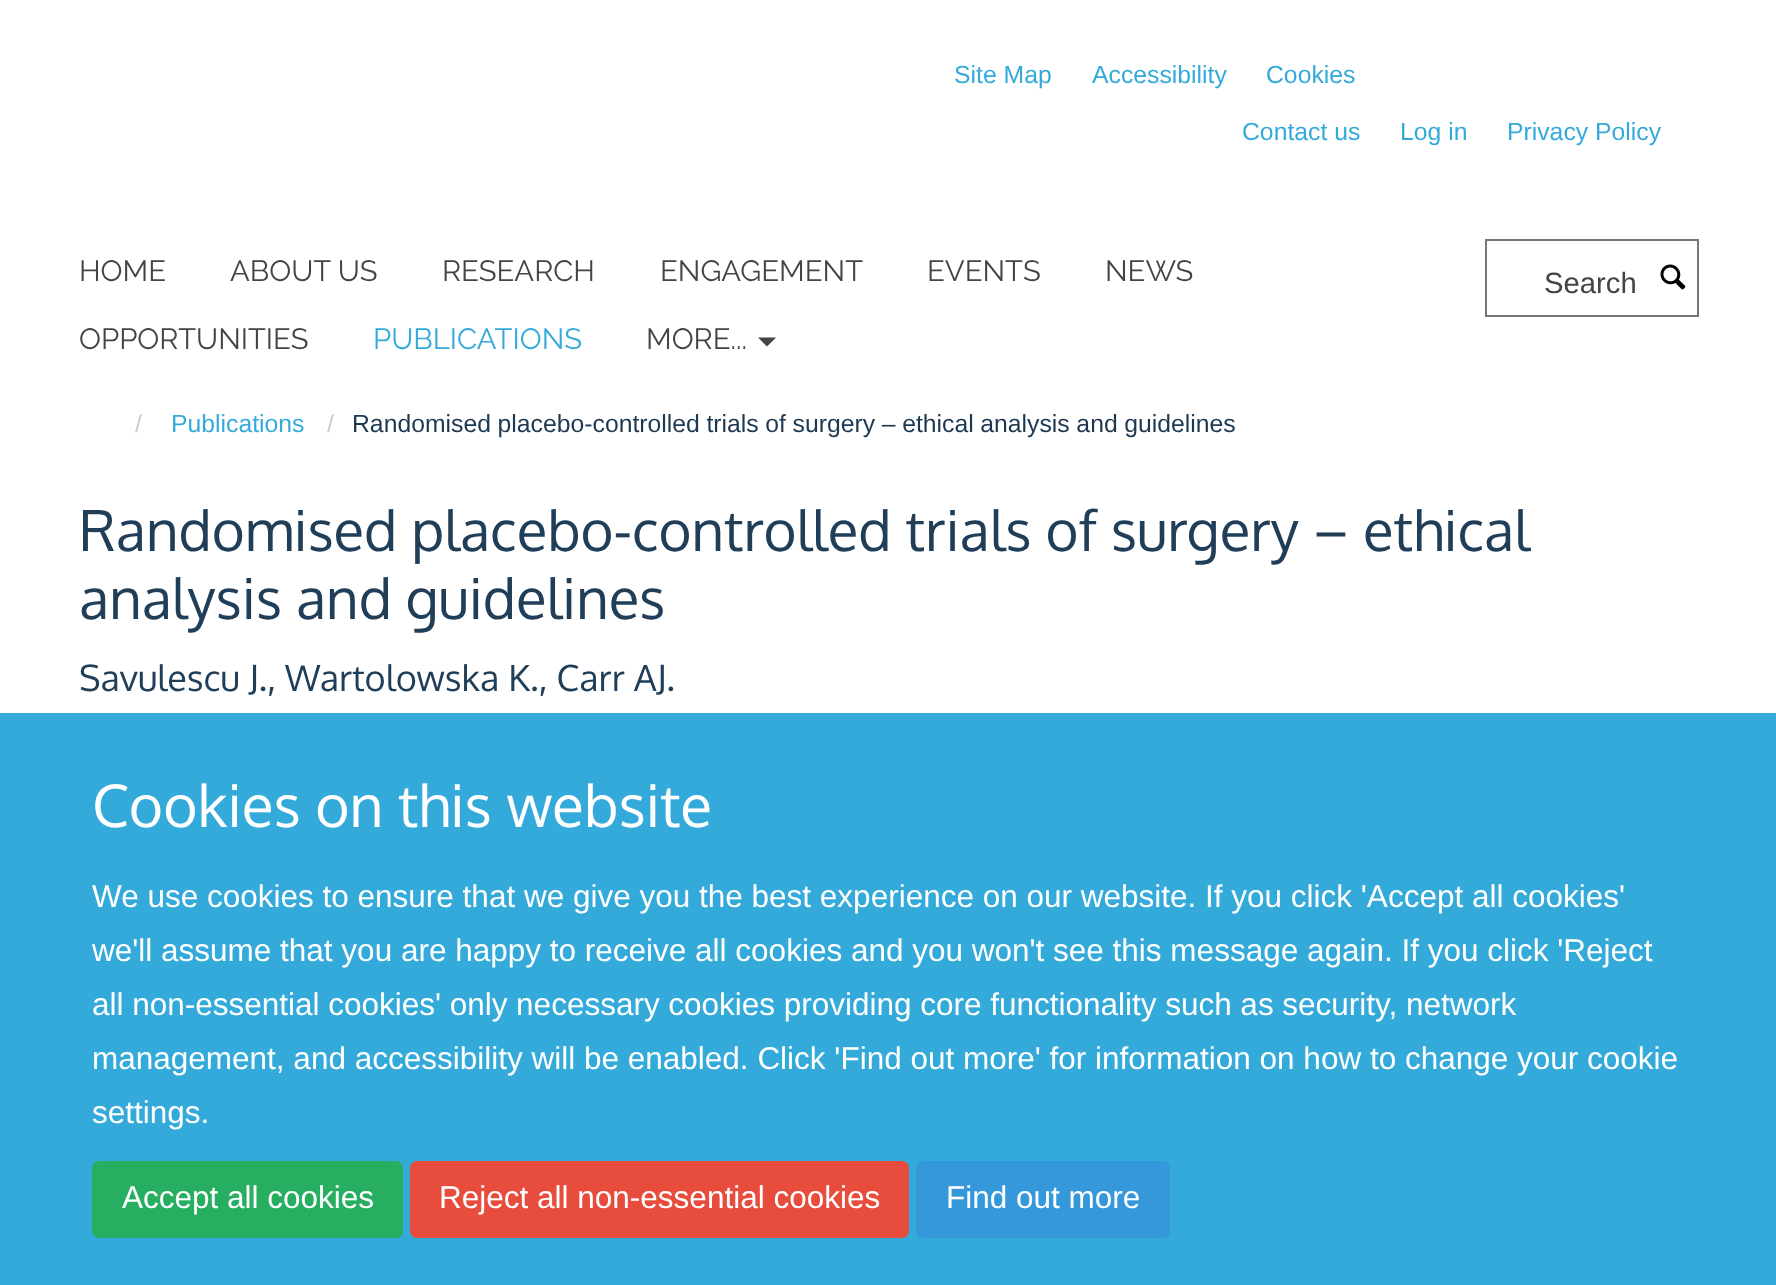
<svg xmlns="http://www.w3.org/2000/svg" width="1776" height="1285">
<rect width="100%" height="100%" fill="#fff"/>
<text x="954" y="83" style="font-family:Liberation Sans;font-size:24.75px;fill:#34aadb">Site Map</text>
<text x="1092" y="83" style="font-family:Liberation Sans;font-size:24.75px;fill:#34aadb">Accessibility</text>
<text x="1266" y="83" style="font-family:Liberation Sans;font-size:24.75px;fill:#34aadb">Cookies</text>
<text x="1242" y="140" style="font-family:Liberation Sans;font-size:24.75px;fill:#34aadb">Contact us</text>
<text x="1400" y="140" style="font-family:Liberation Sans;font-size:24.75px;fill:#34aadb">Log in</text>
<text x="1507" y="140" style="font-family:Liberation Sans;font-size:24.75px;fill:#34aadb">Privacy Policy</text>
<text x="79" y="281" style="font-family:Raleway;font-size:29.25px;font-weight:100;fill:#444">HOME</text>
<text x="230" y="281" style="font-family:Raleway;font-size:29.25px;font-weight:100;fill:#444">ABOUT US</text>
<text x="442" y="281" style="font-family:Raleway;font-size:29.25px;font-weight:100;fill:#444">RESEARCH</text>
<text x="660" y="281" style="font-family:Raleway;font-size:29.25px;font-weight:100;fill:#444">ENGAGEMENT</text>
<text x="927" y="281" style="font-family:Raleway;font-size:29.25px;font-weight:100;fill:#444">EVENTS</text>
<text x="1105" y="281" style="font-family:Raleway;font-size:29.25px;font-weight:100;fill:#444">NEWS</text>
<text x="79" y="349" style="font-family:Raleway;font-size:29.25px;font-weight:100;fill:#444">OPPORTUNITIES</text>
<text x="373" y="349" style="font-family:Raleway;font-size:29.25px;font-weight:100;fill:#34aadb">PUBLICATIONS</text>
<text x="646" y="349" style="font-family:Raleway;font-size:29.25px;font-weight:100;fill:#444">MORE...</text>
<path d="M758 337.5h18l-9 9z" fill="#444"/>
<rect x="1486" y="240" width="212" height="76" fill="none" stroke="#777" stroke-width="2"/>
<text x="1544" y="293" style="font-family:Liberation Sans;font-size:29.25px;fill:#444">Search</text>
<image x="1660" y="264" width="26" height="26" href="media/1.png"/>
<text x="135" y="432" style="font-family:Liberation Sans;font-size:24.75px;fill:#ccc">/</text>
<text x="171" y="432" style="font-family:Liberation Sans;font-size:24.75px;fill:#34aadb">Publications</text>
<text x="327" y="432" style="font-family:Liberation Sans;font-size:24.75px;fill:#ccc">/</text>
<text x="352" y="432" word-spacing="-0.25" style="font-family:Liberation Sans;font-size:24.75px;fill:#1d3850">Randomised placebo-controlled trials of surgery – ethical analysis and guidelines</text>
<text x="79" y="551" style="font-family:Oxygen;font-size:56.25px;fill:#203e58">Randomised placebo-controlled trials of surgery – ethical</text>
<text x="79" y="619" style="font-family:Oxygen;font-size:56.25px;fill:#203e58">analysis and guidelines</text>
<text x="79" y="691" style="font-family:Oxygen;font-size:36px;fill:#203e58">Savulescu J., Wartolowska K., Carr AJ.</text>
<rect y="713" width="1776" height="572" fill="#34aadb"/>
<text x="92" y="827" style="font-family:Oxygen;font-size:58.5px;fill:#fff">Cookies on this website</text>
<text x="92" y="907" style="font-family:Liberation Sans;font-size:31.5px;fill:#fff">We use cookies to ensure that we give you the best experience on our website. If you click 'Accept all cookies'</text>
<text x="92" y="961" style="font-family:Liberation Sans;font-size:31.5px;fill:#fff">we'll assume that you are happy to receive all cookies and you won't see this message again. If you click 'Reject</text>
<text x="92" y="1015" word-spacing="-0.1" style="font-family:Liberation Sans;font-size:31.5px;fill:#fff">all non-essential cookies' only necessary cookies providing core functionality such as security, network</text>
<text x="92" y="1069" style="font-family:Liberation Sans;font-size:31.5px;fill:#fff">management, and accessibility will be enabled. Click 'Find out more' for information on how to change your cookie</text>
<text x="92" y="1123" style="font-family:Liberation Sans;font-size:31.5px;fill:#fff">settings.</text>
<rect x="93" y="1162" width="309" height="75" rx="6" fill="#27ae60" stroke="#27ae60" stroke-width="2"/>
<text x="122" y="1208" style="font-family:Liberation Sans;font-size:31.5px;fill:#fff">Accept all cookies</text>
<rect x="411" y="1162" width="497" height="75" rx="6" fill="#e74c3c" stroke="#e74c3c" stroke-width="2"/>
<text x="439" y="1208" style="font-family:Liberation Sans;font-size:31.5px;fill:#fff">Reject all non-essential cookies</text>
<rect x="917" y="1162" width="252" height="75" rx="6" fill="#3498db" stroke="#3498db" stroke-width="2"/>
<text x="946" y="1208" style="font-family:Liberation Sans;font-size:31.5px;fill:#fff">Find out more</text>
</svg>
